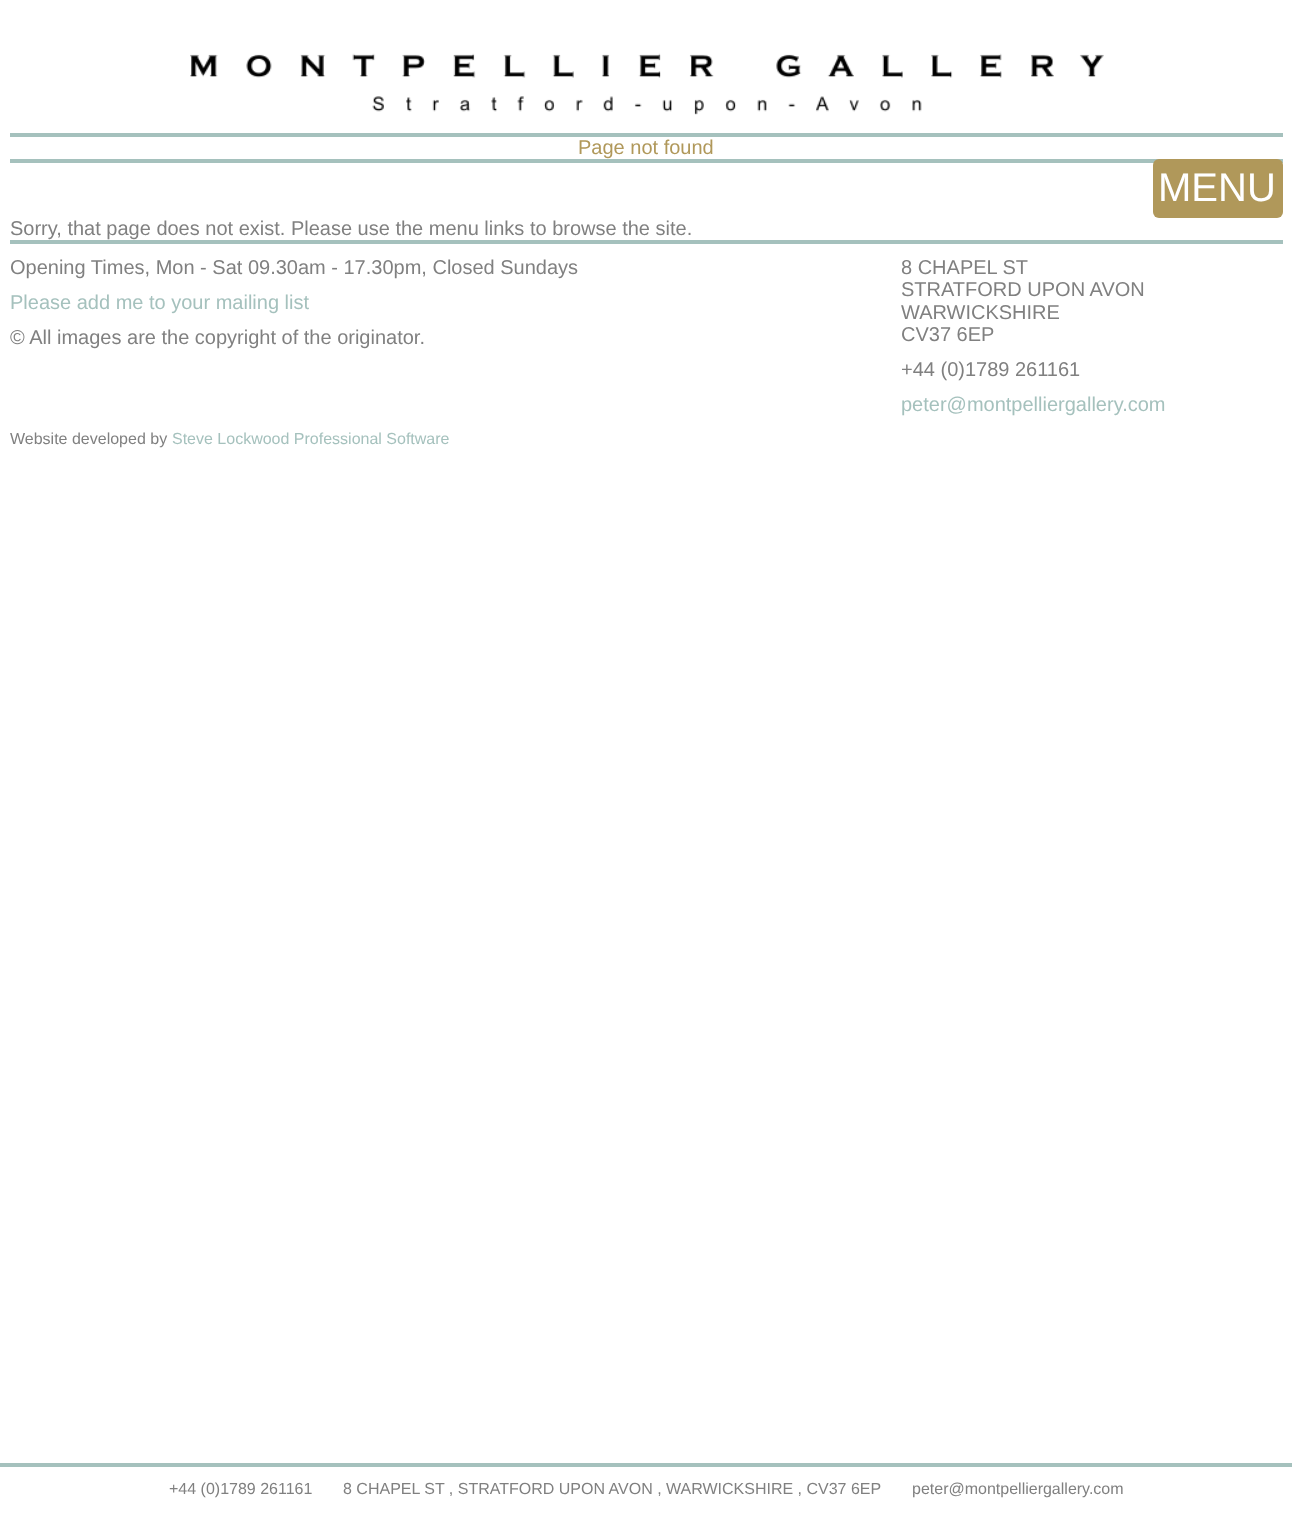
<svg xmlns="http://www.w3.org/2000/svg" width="1292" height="1517">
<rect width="100%" height="100%" fill="#fff"/>
<image x="190" y="53" width="914" height="62" href="media/1.png"/>
<rect x="10" y="133" width="1273" height="4" fill="#a5c1bd"/>
<rect x="10" y="159" width="1273" height="4" fill="#a5c1bd"/>
<text x="578" y="154" style="font-family:Liberation Sans;font-size:20px;fill:#b0985a">Page not found</text>
<rect x="1153" y="159" width="130" height="59" rx="6" fill="#b0985a"/>
<text x="1158" y="201" style="font-family:Liberation Sans;font-size:40px;fill:#fff">MENU</text>
<text x="10" y="235" style="font-family:Liberation Sans;font-size:20px;fill:#808080">Sorry, that page does not exist. Please use the menu links to browse the site.</text>
<rect x="10" y="240" width="1273" height="4" fill="#a5c1bd"/>
<text x="10" y="274" style="font-family:Liberation Sans;font-size:20px;fill:#808080">Opening Times, Mon - Sat 09.30am - 17.30pm, Closed Sundays</text>
<text x="901" y="274" style="font-family:Liberation Sans;font-size:20px;fill:#808080">8 CHAPEL ST</text>
<text x="901" y="296" style="font-family:Liberation Sans;font-size:20px;fill:#808080">STRATFORD UPON AVON</text>
<text x="901" y="319" style="font-family:Liberation Sans;font-size:20px;fill:#808080">WARWICKSHIRE</text>
<text x="901" y="341" style="font-family:Liberation Sans;font-size:20px;fill:#808080">CV37 6EP</text>
<text x="10" y="309" style="font-family:Liberation Sans;font-size:20px;fill:#a5c1bd">Please add me to your mailing list</text>
<text x="10" y="344" style="font-family:Liberation Sans;font-size:20px;fill:#808080">© All images are the copyright of the originator.</text>
<text x="901" y="376" style="font-family:Liberation Sans;font-size:20px;fill:#808080">+44 (0)1789 261161</text>
<text x="901" y="411" style="font-family:Liberation Sans;font-size:20px;fill:#a5c1bd">peter@montpelliergallery.com</text>
<text x="10" y="444" style="font-family:Liberation Sans;font-size:16px;fill:#808080">Website developed by</text>
<text x="172" y="444" style="font-family:Liberation Sans;font-size:16px;fill:#a5c1bd">Steve Lockwood Professional Software</text>
<rect y="1463" width="1292" height="4" fill="#a5c1bd"/>
<text x="169" y="1494" style="font-family:Liberation Sans;font-size:16px;fill:#808080">+44 (0)1789 261161</text>
<text x="343" y="1494" style="font-family:Liberation Sans;font-size:16px;fill:#808080">8 CHAPEL ST , STRATFORD UPON AVON , WARWICKSHIRE , CV37 6EP</text>
<text x="912" y="1494" style="font-family:Liberation Sans;font-size:16px;fill:#808080">peter@montpelliergallery.com</text>
</svg>
